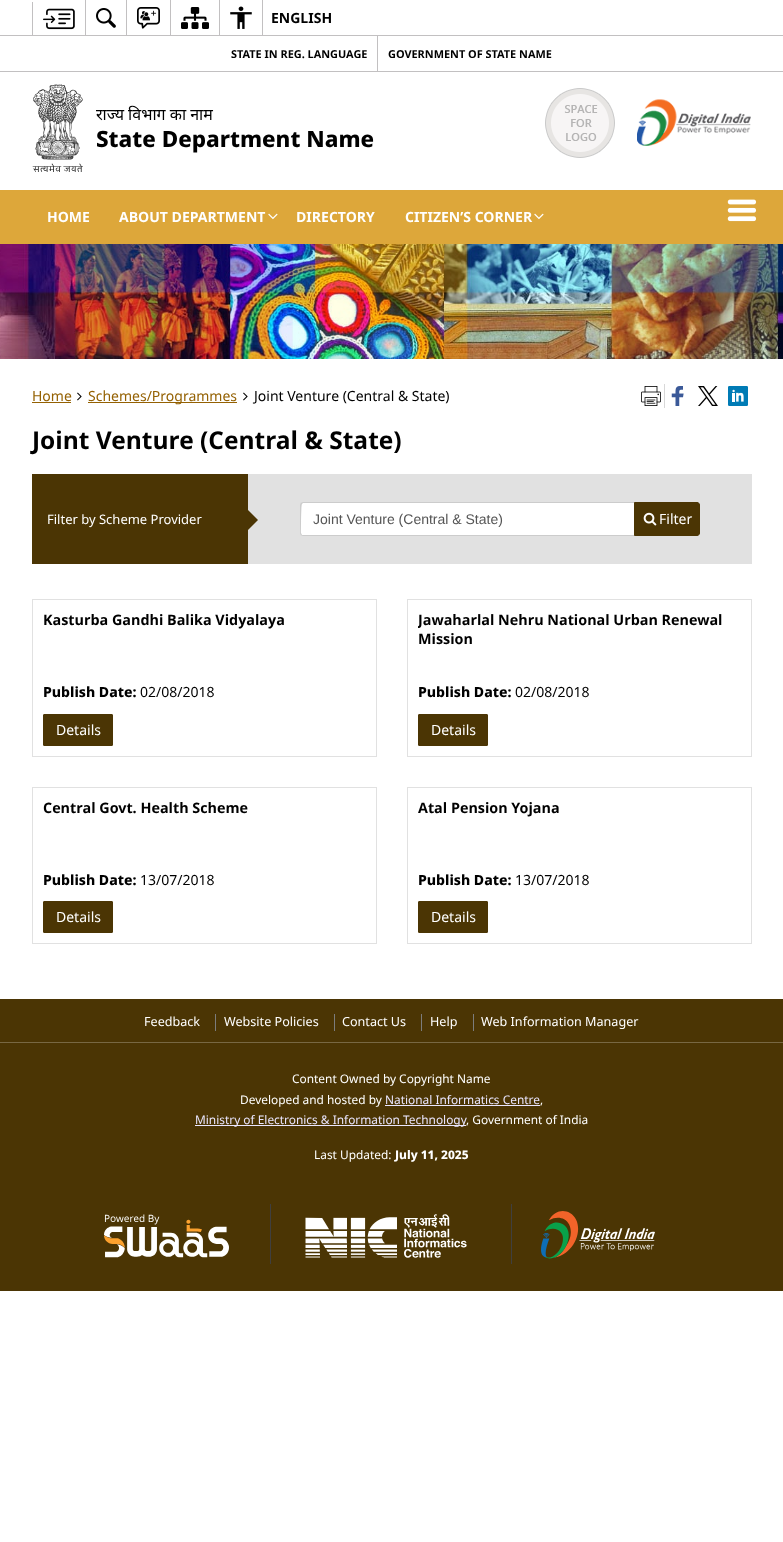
<svg xmlns="http://www.w3.org/2000/svg" width="783" height="1542">
<defs>
<clipPath id="clip1"><rect x="418" y="610" width="323" height="70"/></clipPath>
</defs>
<rect width="100%" height="100%" fill="#fff"/>
<rect y="71" width="783" height="1" fill="#c2c0c1"/>
<rect x="32" y="2" width="1" height="33" fill="#c2c0c1"/>
<image x="43" y="8" width="32" height="22" href="media/1.png"/>
<rect x="85" width="1" height="35" fill="#c2c0c1"/>
<image x="96" y="8" width="20" height="20" href="media/2.png"/>
<rect x="126" width="1" height="35" fill="#c2c0c1"/>
<image x="137" y="7" width="23" height="22" href="media/3.png"/>
<rect x="170" width="1" height="35" fill="#c2c0c1"/>
<image x="181" y="7" width="28" height="22" href="media/4.png"/>
<rect x="219" width="1" height="35" fill="#c2c0c1"/>
<image x="230" y="6" width="22" height="23" href="media/5.png"/>
<rect x="262" width="1" height="35" fill="#c2c0c1"/>
<text x="271" y="23" style="font-family:Noto Sans;font-size:14px;font-weight:bold;fill:#000">ENGLISH</text>
<rect x="377" y="36" width="1" height="35" fill="#c2c0c1"/>
<text x="231" y="58" style="font-family:Noto Sans;font-size:10.9px;font-weight:bold;fill:#000">STATE IN REG. LANGUAGE</text>
<text x="388" y="58" style="font-family:Noto Sans;font-size:10.9px;font-weight:bold;fill:#000">GOVERNMENT OF STATE NAME</text>
<rect y="35" width="783" height="1" fill="#c2c0c1"/>
<image x="32" y="84" width="51" height="88" href="media/6.png"/>
<text x="96" y="120" style="font-family:Noto Sans;font-size:16px;fill:#000">राज्य विभाग का नाम</text>
<text x="96" y="147" style="font-family:Noto Sans;font-size:22.4px;font-weight:800;fill:#000">State Department Name</text>
<image x="545" y="88" width="70" height="70" href="media/7.png"/>
<image x="637" y="99" width="114" height="47" href="media/8.png"/>
<rect y="190" width="783" height="54" fill="#dda73a"/>
<text x="47" y="222" style="font-family:Noto Sans;font-size:14px;font-weight:bold;fill:#fff">HOME</text>
<text x="119" y="222" style="font-family:Noto Sans;font-size:14px;font-weight:bold;fill:#fff">ABOUT DEPARTMENT</text>
<image x="268" y="213" width="10" height="7" href="media/9.png"/>
<text x="296" y="222" style="font-family:Noto Sans;font-size:14px;font-weight:bold;fill:#fff">DIRECTORY</text>
<text x="405" y="222" style="font-family:Noto Sans;font-size:14px;font-weight:bold;fill:#fff">CITIZEN’S CORNER</text>
<image x="534" y="213" width="10" height="7" href="media/9.png"/>
<image x="727" y="199" width="30" height="23" href="media/10.png"/>
<image x="0" y="244" width="783" height="115" href="media/11.png"/>
<text x="32" y="401" style="font-family:Noto Sans;font-size:14px;fill:#946103">Home</text>
<rect x="32" y="402" width="39" height="1" fill="#946103"/>
<image x="77" y="392" width="5" height="9" href="media/12.png"/>
<rect x="88" y="402" width="149" height="1" fill="#946103"/>
<text x="88" y="401" style="font-family:Noto Sans;font-size:14px;fill:#946103">Schemes/Programmes</text>
<image x="243" y="392" width="5" height="9" href="media/12.png"/>
<text x="254" y="401" style="font-family:Noto Sans;font-size:14px;fill:#000">Joint Venture (Central &amp; State)</text>
<rect x="664" y="384" width="1" height="24" fill="#d8d8d8"/>
<image x="641" y="386" width="20" height="20" href="media/13.png"/>
<image x="671" y="386" width="13" height="20" href="media/14.png"/>
<image x="698" y="386" width="20" height="20" href="media/15.png"/>
<image x="728" y="386" width="20" height="20" href="media/16.png"/>
<text x="32" y="449" style="font-family:Noto Sans;font-size:24.5px;font-weight:bold;fill:#000">Joint Venture (Central &amp; State)</text>
<rect x="248" y="474" width="504" height="90" fill="#e1e1e1"/>
<rect x="32" y="474" width="216" height="90" fill="#4b3504"/>
<text x="47" y="524" style="font-family:Noto Sans;font-size:13px;fill:#fff">Filter by Scheme Provider</text>
<path d="M248 530v-20l10 10z" fill="#4b3504"/>
<path d="M303 502h331v34h-331c-1.5 0-3-1.5-3-3v-28c0-1.5 1.5-3 3-3z" fill="#fff"/>
<path d="M303 502h331v34h-331c-2 0-3-1-3-3v-28c0-2 1-3 3-3zm0 1h331v32h-332l-1-2c0-2 0-29 1-29z" fill="#ccc" fill-rule="evenodd"/>
<text x="313" y="524" style="font-family:Liberation Sans;font-size:14px;fill:#555">Joint Venture (Central &amp; State)</text>
<path d="M634.5 502.5h62.5c1.5 0 2.5 1 2.5 2.5v28c0 1.5-1 2.5-2.5 2.5h-62.5z" fill="#4b3504" stroke="#4b3504"/>
<image x="643" y="512" width="14" height="14" href="media/17.png"/>
<text x="659" y="524" style="font-family:Noto Sans;font-size:14px;fill:#fff">Filter</text>
<rect x="32.5" y="599.5" width="344" height="157" fill="none" stroke="#e1e1e1"/>
<text x="43" y="625" style="font-family:Noto Sans;font-size:14.35px;font-weight:bold;fill:#000">Kasturba Gandhi Balika Vidyalaya</text>
<text x="43" y="697" style="font-family:Noto Sans;font-size:14px;font-weight:800;fill:#000">Publish Date:</text>
<text x="140" y="697" style="font-family:Noto Sans;font-size:14px;fill:#000">02/08/2018</text>
<rect x="43.5" y="714.5" width="69" height="31" rx="0.5" fill="#4b3504" stroke="#4b3504"/>
<text x="56" y="735" style="font-family:Noto Sans;font-size:14px;fill:#fff">Details</text>
<rect x="407.5" y="599.5" width="344" height="157" fill="none" stroke="#e1e1e1"/>
<g clip-path="url(#clip1)">
<text x="418" y="625" style="font-family:Noto Sans;font-size:14.35px;font-weight:bold;fill:#000">Jawaharlal Nehru National Urban Renewal</text>
</g>
<text x="418" y="644" style="font-family:Noto Sans;font-size:14.35px;font-weight:bold;fill:#000">Mission</text>
<text x="418" y="697" style="font-family:Noto Sans;font-size:14px;font-weight:800;fill:#000">Publish Date:</text>
<text x="515" y="697" style="font-family:Noto Sans;font-size:14px;fill:#000">02/08/2018</text>
<rect x="418.5" y="714.5" width="69" height="31" rx="0.5" fill="#4b3504" stroke="#4b3504"/>
<text x="431" y="735" style="font-family:Noto Sans;font-size:14px;fill:#fff">Details</text>
<rect x="32.5" y="787.5" width="344" height="156" fill="none" stroke="#e1e1e1"/>
<text x="43" y="813" style="font-family:Noto Sans;font-size:14.35px;font-weight:bold;fill:#000">Central Govt. Health Scheme</text>
<text x="43" y="885" style="font-family:Noto Sans;font-size:14px;font-weight:800;fill:#000">Publish Date:</text>
<text x="140" y="885" style="font-family:Noto Sans;font-size:14px;fill:#000">13/07/2018</text>
<rect x="43.5" y="901.5" width="69" height="31" rx="0.5" fill="#4b3504" stroke="#4b3504"/>
<text x="56" y="922" style="font-family:Noto Sans;font-size:14px;fill:#fff">Details</text>
<rect x="407.5" y="787.5" width="344" height="156" fill="none" stroke="#e1e1e1"/>
<text x="418" y="813" style="font-family:Noto Sans;font-size:14.35px;font-weight:bold;fill:#000">Atal Pension Yojana</text>
<text x="418" y="885" style="font-family:Noto Sans;font-size:14px;font-weight:800;fill:#000">Publish Date:</text>
<text x="515" y="885" style="font-family:Noto Sans;font-size:14px;fill:#000">13/07/2018</text>
<rect x="418.5" y="901.5" width="69" height="31" rx="0.5" fill="#4b3504" stroke="#4b3504"/>
<text x="431" y="922" style="font-family:Noto Sans;font-size:14px;fill:#fff">Details</text>
<rect y="999" width="783" height="43" fill="#4b3504"/>
<rect y="1042" width="783" height="1" fill="#786843"/>
<text x="144" y="1026" style="font-family:Noto Sans;font-size:12.6px;fill:#fff">Feedback</text>
<rect x="215" y="1014" width="1" height="17" fill="#7c7c7c"/>
<text x="224" y="1026" style="font-family:Noto Sans;font-size:12.6px;fill:#fff">Website Policies</text>
<rect x="334" y="1014" width="1" height="17" fill="#7c7c7c"/>
<text x="342" y="1026" style="font-family:Noto Sans;font-size:12.6px;fill:#fff">Contact Us</text>
<rect x="421" y="1014" width="1" height="17" fill="#7c7c7c"/>
<text x="430" y="1026" style="font-family:Noto Sans;font-size:12.6px;fill:#fff">Help</text>
<rect x="473" y="1014" width="1" height="17" fill="#7c7c7c"/>
<text x="481" y="1026" style="font-family:Noto Sans;font-size:12.6px;fill:#fff">Web Information Manager</text>
<rect y="1043" width="783" height="248" fill="#4b3504"/>
<text x="292" y="1083" style="font-family:Noto Sans;font-size:11.9px;fill:#fff">Content Owned by Copyright Name</text>
<text x="240" y="1104" style="font-family:Noto Sans;font-size:11.9px;fill:#fff">Developed and hosted by</text>
<text x="385" y="1104" style="font-family:Noto Sans;font-size:11.9px;fill:#eae6ff">National Informatics Centre</text>
<rect x="385" y="1105" width="155" height="1" fill="#eae6ff"/>
<text x="540" y="1104" style="font-family:Noto Sans;font-size:11.9px;fill:#fff">,</text>
<rect x="195" y="1125" width="271" height="1" fill="#eae6ff"/>
<text x="195" y="1124" style="font-family:Noto Sans;font-size:11.9px;fill:#eae6ff">Ministry of Electronics &amp; Information Technology</text>
<text x="466" y="1124" style="font-family:Noto Sans;font-size:11.9px;fill:#fff">, Government of India</text>
<text x="314" y="1159" style="font-family:Noto Sans;font-size:11.9px;fill:#fff">Last Updated:</text>
<text x="395" y="1159" style="font-family:Noto Sans;font-size:11.9px;font-weight:800;fill:#fff">July 11, 2025</text>
<image x="104" y="1214" width="125" height="44" href="media/18.png"/>
<rect x="270" y="1204" width="1" height="60" fill="#3f3f3f"/>
<image x="305" y="1214" width="162" height="44" href="media/19.png"/>
<rect x="511" y="1204" width="1" height="60" fill="#3f3f3f"/>
<image x="541" y="1211" width="114" height="48" href="media/20.png"/>
</svg>
